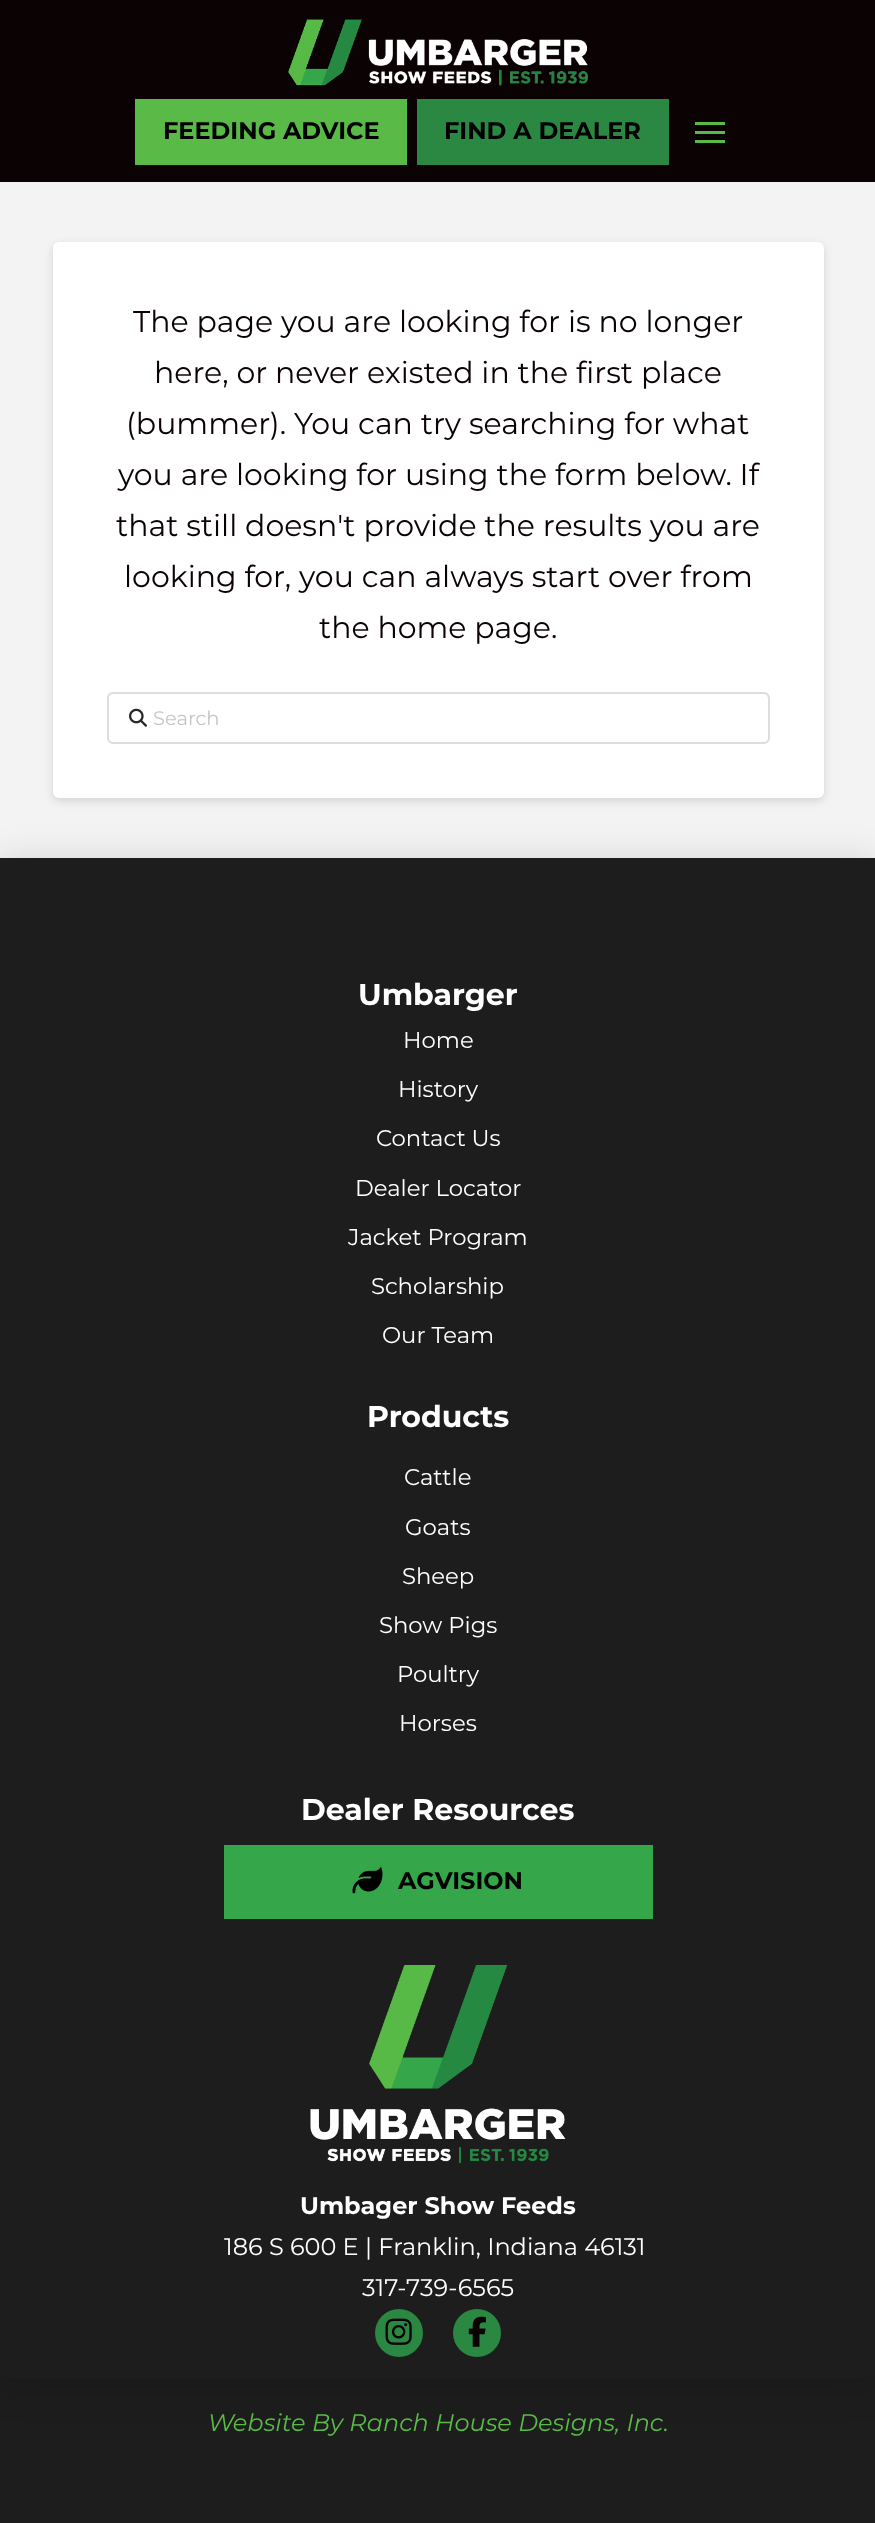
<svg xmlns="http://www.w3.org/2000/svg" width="875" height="2523">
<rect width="100%" height="100%" fill="#f3f3f3"/>
<rect width="875" height="182" fill="#0a0203"/>
<image x="288" y="19" width="300" height="67" href="media/1.png"/>
<rect x="135" y="99" width="272" height="66" fill="#5aba47"/>
<text x="163" y="139" style="font-family:Montserrat;font-size:24px;font-weight:bold;fill:#000">FEEDING ADVICE</text>
<rect x="417" y="99" width="252" height="66" fill="#2a8842"/>
<text x="444" y="139" style="font-family:Montserrat;font-size:24px;font-weight:bold;fill:#000">FIND A DEALER</text>
<rect x="695" y="122" width="30" height="3" fill="#5aba47"/>
<rect x="695" y="131" width="30" height="3" fill="#5aba47"/>
<rect x="695" y="140" width="30" height="3" fill="#5aba47"/>
<rect x="53" y="245" width="771" height="556" rx="6" fill="#00000021" filter="blur(4px)"/>
<rect x="53" y="242" width="771" height="556" rx="6" fill="#fff"/>
<text x="133" y="332" style="font-family:Montserrat;font-size:30px;fill:#0a0203">The page you are looking for is no longer</text>
<text x="154" y="383" style="font-family:Montserrat;font-size:30px;fill:#0a0203">here, or never existed in the first place</text>
<text x="126" y="434" style="font-family:Montserrat;font-size:30px;fill:#0a0203">(bummer). You can try searching for what</text>
<text x="118" y="485" style="font-family:Montserrat;font-size:30px;fill:#0a0203">you are looking for using the form below. If</text>
<text x="116" y="536" style="font-family:Montserrat;font-size:30px;fill:#0a0203">that still doesn't provide the results you are</text>
<text x="124" y="587" style="font-family:Montserrat;font-size:30px;fill:#0a0203">looking for, you can always start over from</text>
<text x="319" y="638" style="font-family:Montserrat;font-size:30px;fill:#0a0203">the home page.</text>
<path d="M112 694h652c2 0 4 3 4 5v-1c0-3-2-5-5-5h-650c-3 0-5 2-5 5v1c0-2 2-5 4-5z" fill="#ececec"/>
<rect x="108" y="693" width="661" height="50" rx="5" fill="none" stroke="#ddd" stroke-width="2"/>
<image x="129" y="708" width="18" height="19" href="media/2.png"/>
<text x="153" y="725" style="font-family:Montserrat;font-size:19.5px;fill:#c5c5c5">Search</text>
<rect y="2379" width="875" height="144" fill="#1d1d1d"/>
<rect y="863" width="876" height="1521" fill="#00000026" filter="blur(19px)"/>
<rect y="858" width="875" height="1521" fill="#1d1d1d"/>
<text x="358" y="1005" style="font-family:Montserrat;font-size:30px;font-weight:bold;fill:#fff">Umbarger</text>
<text x="403" y="1048" style="font-family:Montserrat;font-size:22.75px;fill:#fff">Home</text>
<text x="398" y="1097" style="font-family:Montserrat;font-size:22.75px;fill:#fff">History</text>
<text x="376" y="1146" style="font-family:Montserrat;font-size:22.75px;fill:#fff">Contact Us</text>
<text x="355" y="1196" style="font-family:Montserrat;font-size:22.75px;fill:#fff">Dealer Locator</text>
<text x="348" y="1245" style="font-family:Montserrat;font-size:22.75px;fill:#fff">Jacket Program</text>
<text x="371" y="1294" style="font-family:Montserrat;font-size:22.75px;fill:#fff">Scholarship</text>
<text x="382" y="1343" style="font-family:Montserrat;font-size:22.75px;fill:#fff">Our Team</text>
<text x="367" y="1427" style="font-family:Montserrat;font-size:30px;font-weight:bold;fill:#fff">Products</text>
<text x="404" y="1485" style="font-family:Montserrat;font-size:22.75px;fill:#fff">Cattle</text>
<text x="405" y="1535" style="font-family:Montserrat;font-size:22.75px;fill:#fff">Goats</text>
<text x="402" y="1584" style="font-family:Montserrat;font-size:22.75px;fill:#fff">Sheep</text>
<text x="379" y="1633" style="font-family:Montserrat;font-size:22.75px;fill:#fff">Show Pigs</text>
<text x="397" y="1682" style="font-family:Montserrat;font-size:22.75px;fill:#fff">Poultry</text>
<text x="399" y="1731" style="font-family:Montserrat;font-size:22.75px;fill:#fff">Horses</text>
<text x="301" y="1820" style="font-family:Montserrat;font-size:30px;font-weight:bold;fill:#fff">Dealer Resources</text>
<rect x="224" y="1845" width="429" height="74" fill="#35a649"/>
<image x="352" y="1867" width="31" height="27" href="media/3.png"/>
<text x="398" y="1889" style="font-family:Montserrat;font-size:24px;font-weight:bold;fill:#000">AGVISION</text>
<image x="310" y="1965" width="256" height="198" href="media/4.png"/>
<text x="300" y="2214" style="font-family:Montserrat;font-size:24px;font-weight:bold;fill:#fff">Umbager Show Feeds</text>
<text x="224" y="2255" style="font-family:Montserrat;font-size:24px;fill:#fff">186 S 600 E | Franklin, Indiana 46131</text>
<text x="362" y="2296" style="font-family:Montserrat;font-size:24px;fill:#fff">317-739-6565</text>
<circle cx="399" cy="2333" r="24" fill="#2a8842"/>
<image x="385" y="2318" width="27" height="27" href="media/5.png"/>
<circle cx="477" cy="2333" r="24" fill="#2a8842"/>
<image x="468" y="2316" width="18" height="31" href="media/6.png"/>
<text x="208" y="2431" style="font-family:Montserrat;font-size:24px;font-style:italic;fill:#5aba47">Website By Ranch House Designs, Inc.</text>
</svg>
